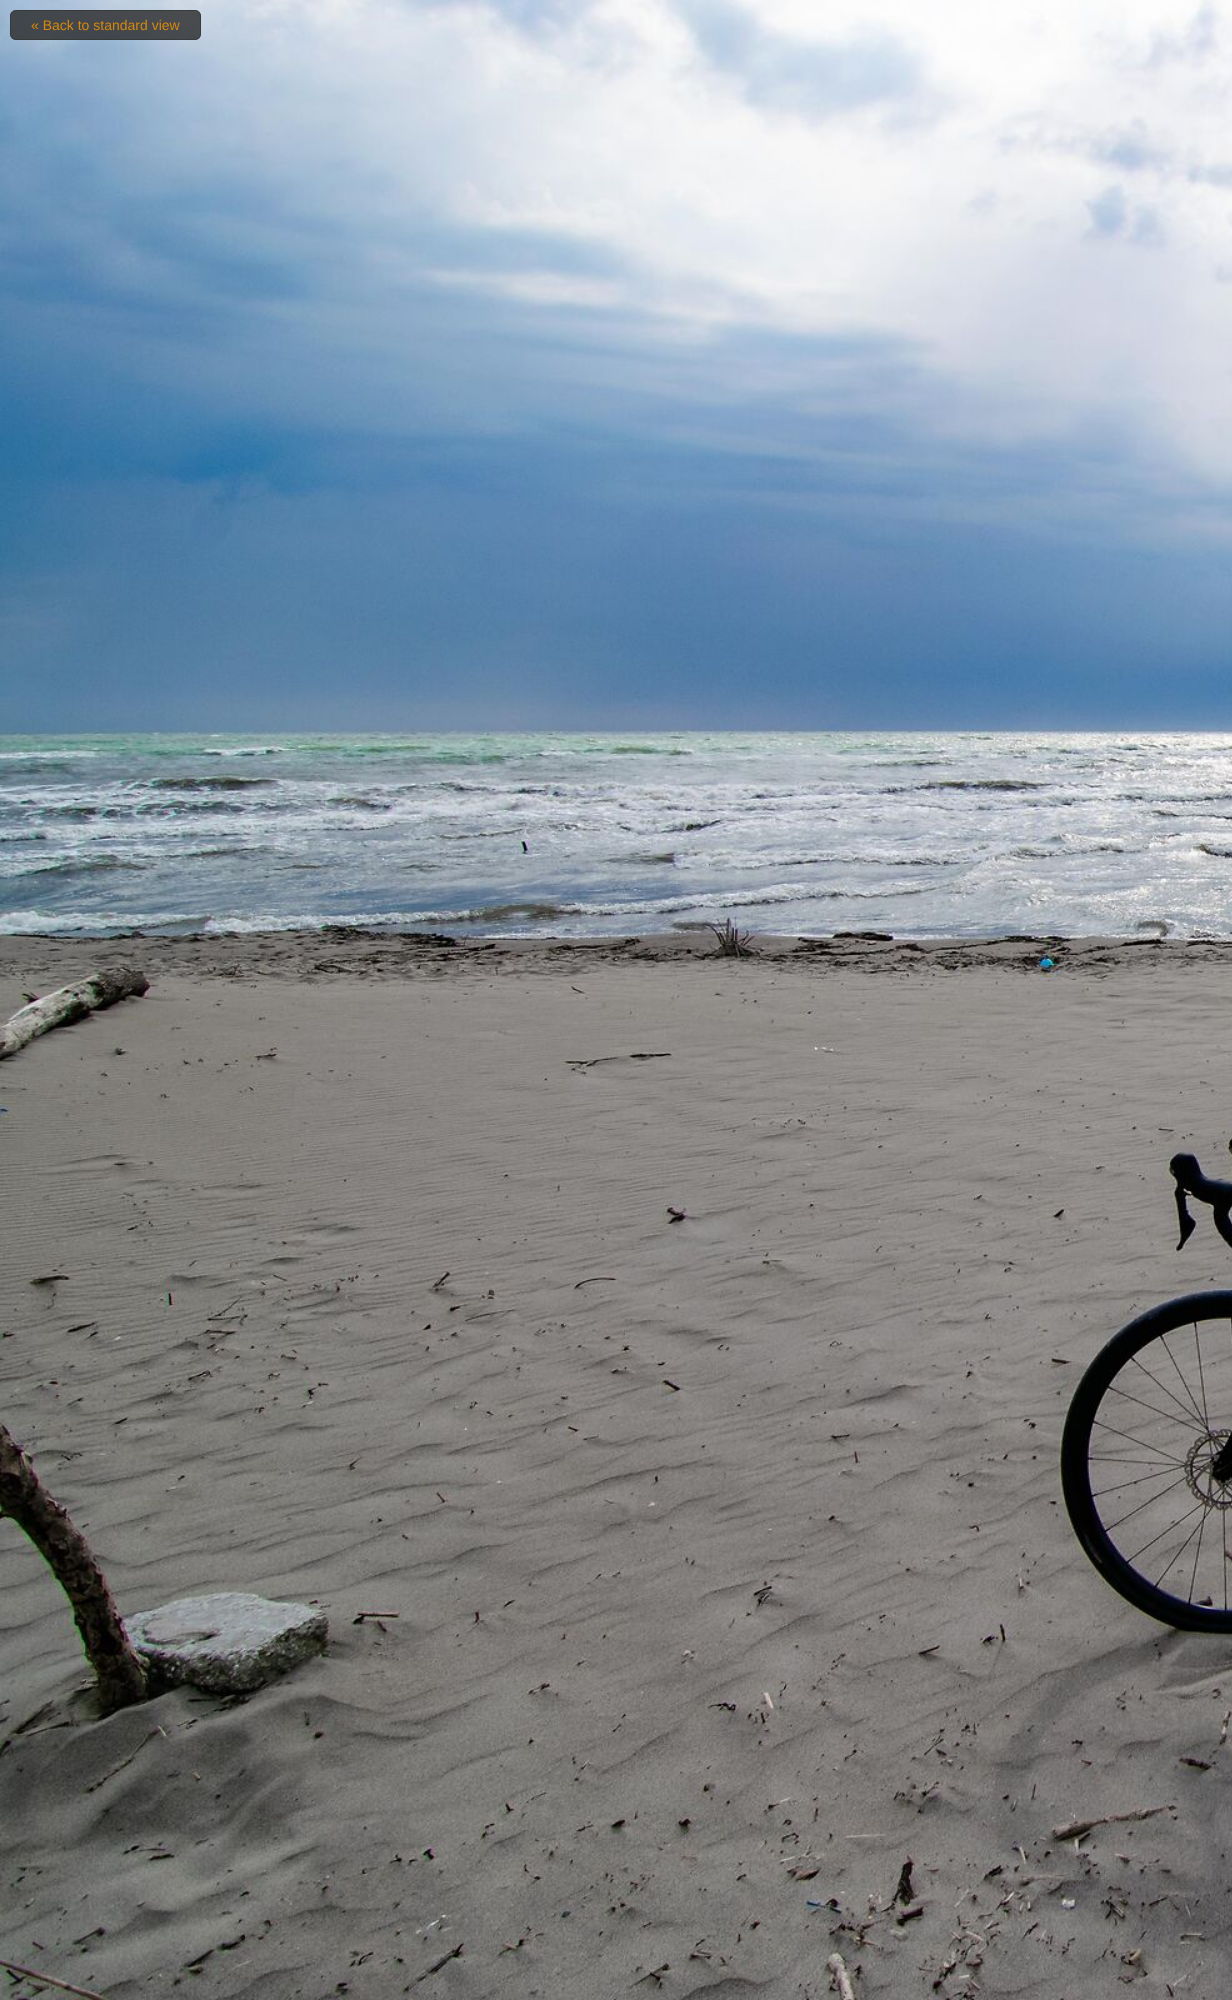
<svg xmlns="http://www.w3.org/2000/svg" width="1232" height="2000">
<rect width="100%" height="100%" fill="#fff"/>
<image x="0" y="0" width="1232" height="2000" href="media/1.png"/>
<rect x="10" y="10" width="191" height="30" rx="6" fill="#292929cc"/>
<rect x="10.5" y="10.5" width="190" height="29" rx="5.5" fill="none" stroke="#353735cc"/>
<text x="31" y="30" style="font-family:Liberation Sans;font-size:14px;fill:#d6870f">« Back to standard view</text>
</svg>
